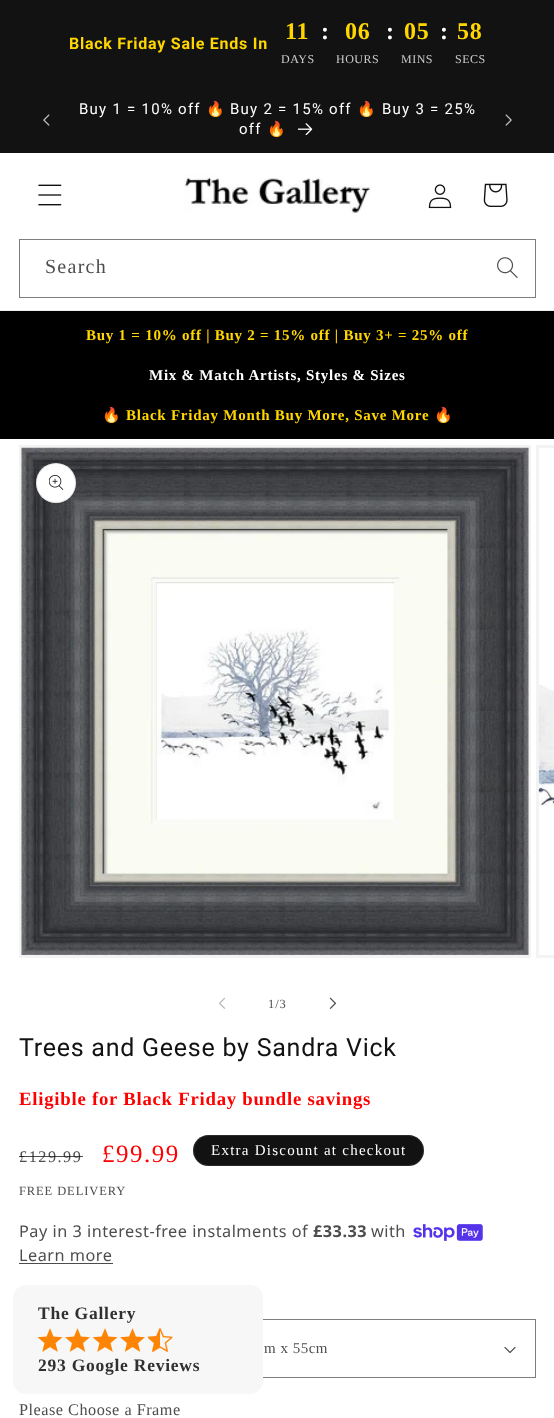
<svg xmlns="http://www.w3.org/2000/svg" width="554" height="1418">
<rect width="100%" height="100%" fill="#fff"/>
<rect width="554" height="153" fill="#121212"/>
<text x="69" y="49" style="font-family:Roboto;font-size:16px;font-weight:bold;letter-spacing:0.75px;fill:#ffd600">Black Friday Sale Ends In</text>
<text x="285" y="39" style="font-family:Liberation Serif;font-size:24px;font-weight:bold;letter-spacing:0.75px;fill:#ffd600">11</text>
<text x="281" y="63" style="font-family:Liberation Serif;font-size:12px;letter-spacing:0.5px;fill:#ccc">DAYS</text>
<text x="321" y="39" style="font-family:Liberation Serif;font-size:24px;font-weight:bold;letter-spacing:0.75px;fill:#fff">:</text>
<text x="345" y="39" style="font-family:Liberation Serif;font-size:24px;font-weight:bold;letter-spacing:0.75px;fill:#ffd600">06</text>
<text x="336" y="63" style="font-family:Liberation Serif;font-size:12px;letter-spacing:0.5px;fill:#ccc">HOURS</text>
<text x="386" y="39" style="font-family:Liberation Serif;font-size:24px;font-weight:bold;letter-spacing:0.75px;fill:#fff">:</text>
<text x="404" y="39" style="font-family:Liberation Serif;font-size:24px;font-weight:bold;letter-spacing:0.75px;fill:#ffd600">05</text>
<text x="401" y="63" style="font-family:Liberation Serif;font-size:12px;letter-spacing:0.5px;fill:#ccc">MINS</text>
<text x="440" y="39" style="font-family:Liberation Serif;font-size:24px;font-weight:bold;letter-spacing:0.75px;fill:#fff">:</text>
<text x="457" y="39" style="font-family:Liberation Serif;font-size:24px;font-weight:bold;letter-spacing:0.75px;fill:#ffd600">58</text>
<text x="455" y="63" style="font-family:Liberation Serif;font-size:12px;letter-spacing:0.5px;fill:#ccc">SECS</text>
<image x="43" y="114" width="7" height="12" href="media/1.png"/>
<text x="79" y="114" style="font-family:Roboto;font-size:15px;letter-spacing:1.25px;fill:#fff">Buy 1 = 10% off</text>
<text x="206" y="114" style="font-family:Noto Color Emoji;font-size:15px;letter-spacing:1.25px;fill:#fff">🔥</text>
<text x="230" y="114" style="font-family:Roboto;font-size:15px;letter-spacing:1.25px;fill:#fff">Buy 2 = 15% off</text>
<text x="357" y="114" style="font-family:Noto Color Emoji;font-size:15px;letter-spacing:1.25px;fill:#fff">🔥</text>
<text x="382" y="114" style="font-family:Roboto;font-size:15px;letter-spacing:1.25px;fill:#fff">Buy 3 = 25%</text>
<text x="239" y="134" style="font-family:Roboto;font-size:15px;letter-spacing:1.25px;fill:#fff">off</text>
<text x="267" y="134" style="font-family:Noto Color Emoji;font-size:15px;letter-spacing:1.25px;fill:#fff">🔥</text>
<image x="298" y="123" width="15" height="12" href="media/2.png"/>
<image x="505" y="114" width="7" height="12" href="media/3.png"/>
<rect y="310" width="554" height="1" fill="#ececec"/>
<image x="38" y="184" width="24" height="22" href="media/4.png"/>
<image x="184" y="174" width="187" height="39" href="media/5.png"/>
<image x="428" y="184" width="24" height="25" href="media/6.png"/>
<image x="483" y="183" width="25" height="24" href="media/7.png"/>
<image x="497" y="257" width="21" height="21" href="media/8.png"/>
<rect x="19.5" y="239.5" width="516" height="58" fill="none" stroke="#7d7d7d"/>
<text x="45" y="273" style="font-family:Liberation Serif;font-size:20px;letter-spacing:1.25px;fill:#4d4d4d">Search</text>
<rect y="311" width="554" height="128" fill="#000"/>
<text x="86" y="340" style="font-family:Liberation Serif;font-size:15px;font-weight:bold;letter-spacing:0.75px;fill:#ffd600">Buy 1 = 10% off | Buy 2 = 15% off | Buy 3+ = 25% off</text>
<text x="149" y="380" style="font-family:Liberation Serif;font-size:15px;font-weight:bold;letter-spacing:0.75px;fill:#fff">Mix &amp; Match Artists, Styles &amp; Sizes</text>
<text x="102" y="420" style="font-family:Noto Color Emoji;font-size:15px;font-weight:bold;letter-spacing:0.75px;fill:#ffd600">🔥</text>
<text x="126" y="420" style="font-family:Liberation Serif;font-size:15px;font-weight:bold;letter-spacing:0.75px;fill:#ffd600">Black Friday Month Buy More, Save More</text>
<text x="434" y="420" style="font-family:Noto Color Emoji;font-size:15px;font-weight:bold;letter-spacing:0.75px;fill:#ffd600">🔥</text>
<rect x="20.5" y="446.5" width="509" height="510" fill="none" stroke="#f3f3f3" stroke-width="3"/>
<image x="21" y="447" width="508" height="508" href="media/9.png"/>
<circle cx="56" cy="483" r="20" fill="#fff"/>
<circle cx="56" cy="483" r="19.5" fill="none" stroke="#1212121a"/>
<image x="49" y="475" width="15" height="15" href="media/10.png"/>
<rect x="537.5" y="446.5" width="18" height="510" fill="none" stroke="#f3f3f3" stroke-width="3"/>
<image x="538" y="684" width="16" height="122" href="media/11.png"/>
<image x="219" y="997" width="7" height="12" href="media/12.png"/>
<text x="268" y="1008" style="font-family:Liberation Serif;font-size:12.5px;letter-spacing:0.9px;fill:#4d4d4d">1/3</text>
<image x="329" y="997" width="7" height="12" href="media/13.png"/>
<text x="19" y="1056" style="font-family:Roboto;font-size:25px;letter-spacing:0.75px;fill:#121212">Trees and Geese by Sandra Vick</text>
<text x="19" y="1105" style="font-family:Liberation Serif;font-size:18.75px;font-weight:bold;letter-spacing:0.75px;fill:#f00">Eligible for Black Friday bundle savings</text>
<text x="19" y="1162" style="font-family:Liberation Serif;font-size:16.25px;letter-spacing:1.5px;fill:#4d4d4d">£129.99</text>
<rect x="19" y="1156" width="64" height="1" fill="#121212bf"/>
<text x="102" y="1162" style="font-family:Liberation Serif;font-size:25px;letter-spacing:1.5px;fill:#f00">£99.99</text>
<rect x="193" y="1135" width="231" height="31" rx="15.5" fill="#121212"/>
<rect x="193.5" y="1135.5" width="230" height="30" rx="15" fill="none" stroke="#ffffff1a"/>
<text x="211" y="1155" style="font-family:Liberation Serif;font-size:15px;letter-spacing:1.25px;fill:#fff">Extra Discount at checkout</text>
<text x="19" y="1195" style="font-family:Liberation Serif;font-size:12.5px;letter-spacing:0.9px;fill:#4d4d4d">FREE DELIVERY</text>
<text x="19" y="1237" style="font-family:Noto Sans;font-size:16.25px;letter-spacing:0.5px;fill:#4d4d4d">Pay in 3 interest-free instalments of</text>
<text x="313" y="1237" style="font-family:Noto Sans;font-size:16.25px;font-weight:bold;letter-spacing:0.5px;fill:#4d4d4d">£33.33</text>
<text x="371" y="1237" style="font-family:Noto Sans;font-size:16.25px;letter-spacing:0.5px;fill:#4d4d4d">with</text>
<image x="413" y="1224" width="70" height="17" href="media/14.png"/>
<text x="19" y="1261" style="font-family:Noto Sans;font-size:16.25px;letter-spacing:0.5px;fill:#4d4d4d">Learn more</text>
<rect x="19" y="1263" width="94" height="1" fill="#4d4d4d"/>
<image x="504" y="1347" width="12" height="6" href="media/15.png"/>
<rect x="19.5" y="1319.5" width="516" height="58" fill="none" stroke="#7d7d7d"/>
<text x="264" y="1353" style="font-family:Liberation Serif;font-size:15px;letter-spacing:0.5px;fill:#4d4d4d">m x 55cm</text>
<text x="19" y="1415" style="font-family:Liberation Serif;font-size:16.25px;letter-spacing:0.5px;fill:#4d4d4d">Please Choose a Frame</text>
<rect x="13" y="1285" width="250" height="109" rx="13" fill="#f7f7f7"/>
<text x="38" y="1319" style="font-family:Liberation Serif;font-size:17.5px;font-weight:bold;letter-spacing:0.75px;fill:#303030">The Gallery</text>
<image x="38" y="1328" width="25" height="24" href="media/16.png"/>
<image x="65" y="1328" width="25" height="24" href="media/17.png"/>
<image x="93" y="1328" width="25" height="24" href="media/16.png"/>
<image x="120" y="1328" width="25" height="24" href="media/17.png"/>
<image x="148" y="1328" width="25" height="24" href="media/18.png"/>
<text x="38" y="1371" style="font-family:Liberation Serif;font-size:17.5px;font-weight:bold;letter-spacing:0.75px;fill:#303030">293 Google Reviews</text>
</svg>
